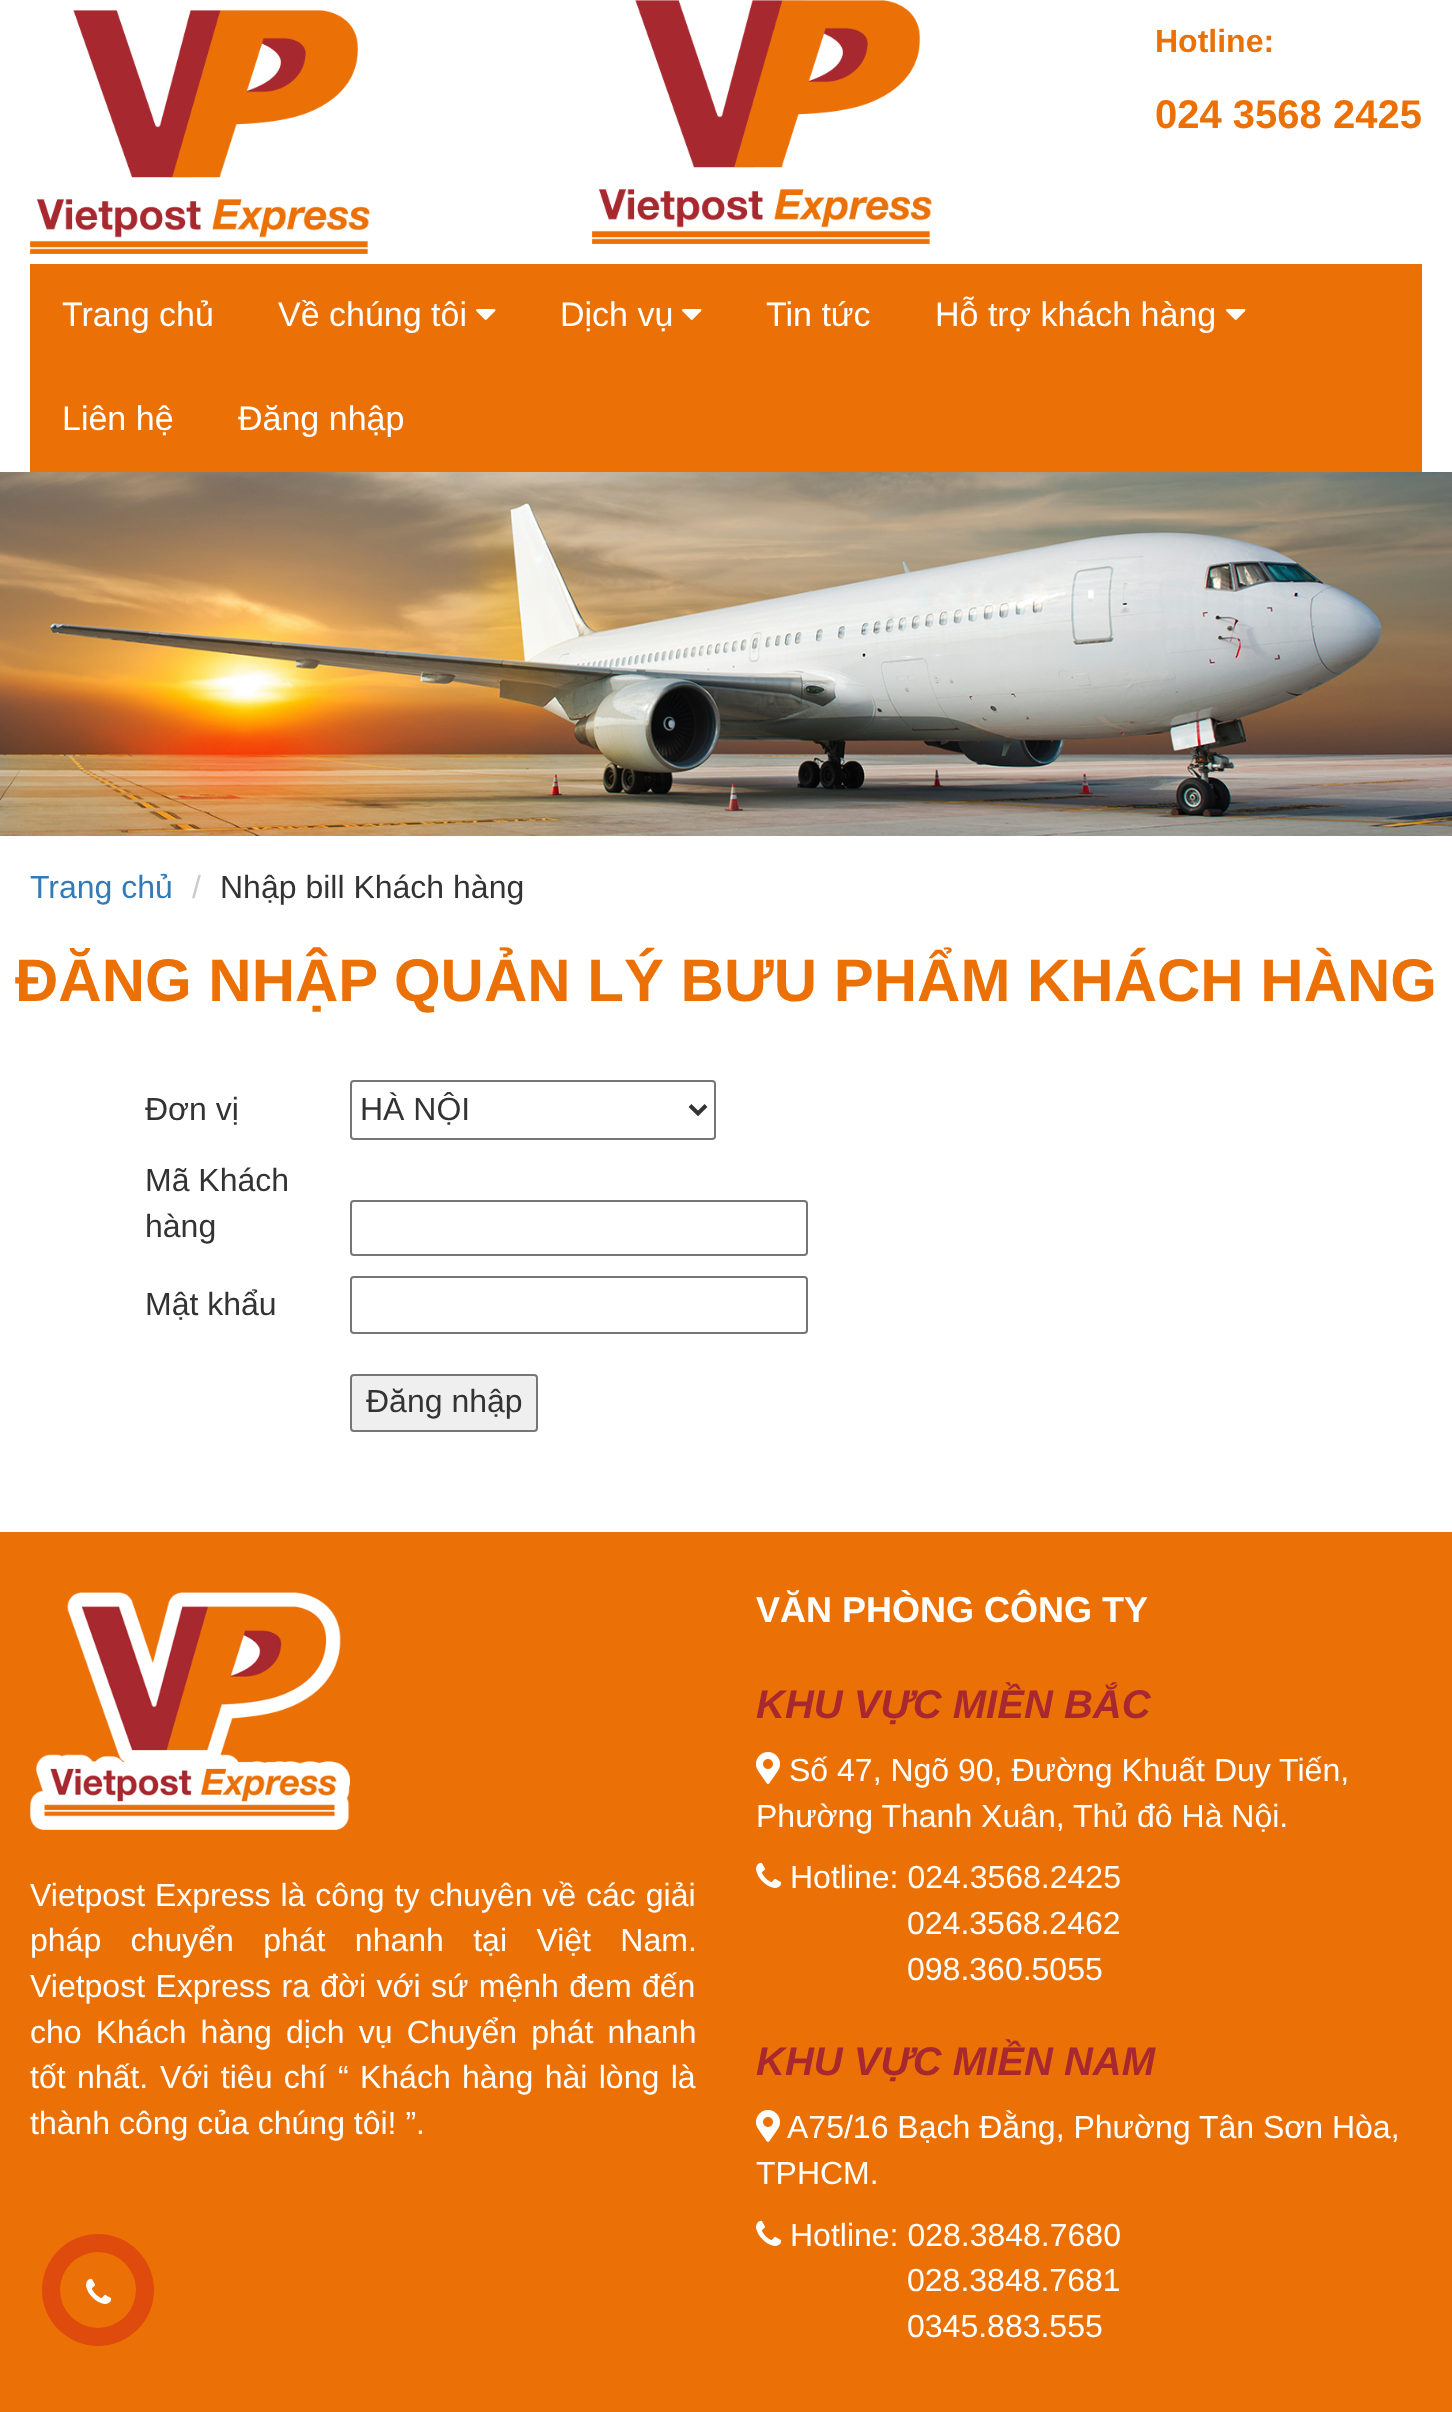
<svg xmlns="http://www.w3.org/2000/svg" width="1452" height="2412">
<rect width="100%" height="100%" fill="#fff"/>
<image x="30" y="10" width="340" height="244" href="media/1.png"/>
<image x="592" y="0" width="340" height="244" href="media/1.png"/>
<text x="1155" y="52" style="font-family:Liberation Sans;font-size:32px;font-weight:bold;fill:#eb7107">Hotline:</text>
<text x="1155" y="128" style="font-family:Liberation Sans;font-size:40px;font-weight:bold;fill:#eb7107">024 3568 2425</text>
<rect x="30" y="264" width="1392" height="208" fill="#eb7107"/>
<text x="62" y="326" style="font-family:Liberation Sans;font-size:34px;fill:#fff">Trang chủ</text>
<text x="278" y="326" style="font-family:Liberation Sans;font-size:34px;fill:#fff">Về chúng tôi</text>
<image x="476" y="309" width="20" height="11" href="media/2.png"/>
<text x="560" y="326" style="font-family:Liberation Sans;font-size:34px;fill:#fff">Dịch vụ</text>
<image x="682" y="309" width="20" height="11" href="media/2.png"/>
<text x="766" y="326" style="font-family:Liberation Sans;font-size:34px;fill:#fff">Tin tức</text>
<text x="935" y="326" style="font-family:Liberation Sans;font-size:34px;fill:#fff">Hỗ trợ khách hàng</text>
<image x="1226" y="309" width="20" height="11" href="media/2.png"/>
<text x="62" y="430" style="font-family:Liberation Sans;font-size:34px;fill:#fff">Liên hệ</text>
<text x="238" y="430" style="font-family:Liberation Sans;font-size:34px;fill:#fff">Đăng nhập</text>
<image x="0" y="472" width="1452" height="364" href="media/3.png"/>
<text x="30" y="898" style="font-family:Liberation Sans;font-size:32px;fill:#337ab7">Trang chủ</text>
<text x="192" y="898" style="font-family:Liberation Sans;font-size:32px;fill:#ccc">/</text>
<text x="220" y="898" style="font-family:Liberation Sans;font-size:32px;fill:#333">Nhập bill Khách hàng</text>
<text x="15" y="1001" style="font-family:Liberation Sans;font-size:60px;font-weight:bold;fill:#eb7107">ĐĂNG NHẬP QUẢN LÝ BƯU PHẨM KHÁCH HÀNG</text>
<text x="145" y="1120" style="font-family:Liberation Sans;font-size:32px;fill:#333">Đơn vị</text>
<rect x="351" y="1081" width="364" height="58" rx="3" fill="none" stroke="#767676" stroke-width="2"/>
<path d="M690 1105.5l8 8l8-8" fill="none" stroke="#333" stroke-width="4"/>
<text x="360" y="1120" style="font-family:Liberation Sans;font-size:32px;fill:#333">HÀ NỘI</text>
<text x="145" y="1191" style="font-family:Liberation Sans;font-size:32px;fill:#333">Mã Khách</text>
<text x="145" y="1237" style="font-family:Liberation Sans;font-size:32px;fill:#333">hàng</text>
<rect x="351" y="1201" width="456" height="54" rx="3" fill="none" stroke="#767676" stroke-width="2"/>
<text x="145" y="1315" style="font-family:Liberation Sans;font-size:32px;fill:#333">Mật khẩu</text>
<rect x="351" y="1277" width="456" height="56" rx="3" fill="none" stroke="#767676" stroke-width="2"/>
<rect x="351" y="1375" width="186" height="56" rx="3" fill="#efefef" stroke="#767676" stroke-width="2"/>
<text x="366" y="1412" style="font-family:Liberation Sans;font-size:32px;fill:#333">Đăng nhập</text>
<rect y="1532" width="1452" height="880" fill="#eb7107"/>
<image x="30" y="1592" width="320" height="238" href="media/4.png"/>
<text x="30" y="1906" word-spacing="1" style="font-family:Liberation Sans;font-size:32px;fill:#fff">Vietpost Express là công ty chuyên về các giải</text>
<text x="30" y="1951" word-spacing="20.5" style="font-family:Liberation Sans;font-size:32px;fill:#fff">pháp chuyển phát nhanh tại Việt Nam.</text>
<text x="30" y="1997" word-spacing="1.5" style="font-family:Liberation Sans;font-size:32px;fill:#fff">Vietpost Express ra đời với sứ mệnh đem đến</text>
<text x="30" y="2043" word-spacing="5.25" style="font-family:Liberation Sans;font-size:32px;fill:#fff">cho Khách hàng dịch vụ Chuyển phát nhanh</text>
<text x="30" y="2088" word-spacing="2.5" style="font-family:Liberation Sans;font-size:32px;fill:#fff">tốt nhất.</text>
<text x="160" y="2088" word-spacing="2.5" style="font-family:Liberation Sans;font-size:32px;fill:#fff">Với tiêu chí “ Khách hàng hài lòng là</text>
<text x="30" y="2134" style="font-family:Liberation Sans;font-size:32px;fill:#fff">thành công của chúng tôi! ”.</text>
<text x="756" y="1622" style="font-family:Liberation Sans;font-size:36px;font-weight:bold;fill:#fff">VĂN PHÒNG CÔNG TY</text>
<text x="756" y="1718" style="font-family:Liberation Sans;font-size:40px;font-weight:bold;font-style:italic;fill:#a82830">KHU VỰC MIỀN BẮC</text>
<image x="756" y="1752" width="24" height="32" href="media/5.png"/>
<text x="789" y="1781" style="font-family:Liberation Sans;font-size:32px;fill:#fff">Số 47, Ngõ 90, Đường Khuất Duy Tiến,</text>
<text x="756" y="1827" style="font-family:Liberation Sans;font-size:32px;fill:#fff">Phường Thanh Xuân, Thủ đô Hà Nội.</text>
<image x="756" y="1862" width="26" height="26" href="media/6.png"/>
<text x="790" y="1888" style="font-family:Liberation Sans;font-size:32px;fill:#fff">Hotline: 024.3568.2425</text>
<text x="907" y="1934" style="font-family:Liberation Sans;font-size:32px;fill:#fff">024.3568.2462</text>
<text x="907" y="1980" style="font-family:Liberation Sans;font-size:32px;fill:#fff">098.360.5055</text>
<text x="756" y="2075" style="font-family:Liberation Sans;font-size:40px;font-weight:bold;font-style:italic;fill:#a82830">KHU VỰC MIỀN NAM</text>
<image x="756" y="2110" width="24" height="32" href="media/5.png"/>
<text x="787" y="2138" style="font-family:Liberation Sans;font-size:32px;fill:#fff">A75/16 Bạch Đằng, Phường Tân Sơn Hòa,</text>
<text x="756" y="2184" style="font-family:Liberation Sans;font-size:32px;fill:#fff">TPHCM.</text>
<image x="756" y="2220" width="26" height="26" href="media/6.png"/>
<text x="790" y="2246" style="font-family:Liberation Sans;font-size:32px;fill:#fff">Hotline: 028.3848.7680</text>
<text x="907" y="2291" style="font-family:Liberation Sans;font-size:32px;fill:#fff">028.3848.7681</text>
<text x="907" y="2337" style="font-family:Liberation Sans;font-size:32px;fill:#fff">0345.883.555</text>
<circle cx="98" cy="2290" r="56" fill="#df4b0c"/>
<circle cx="98" cy="2290" r="38" fill="#eb7107"/>
<image x="86" y="2278" width="26" height="26" href="media/6.png"/>
</svg>
